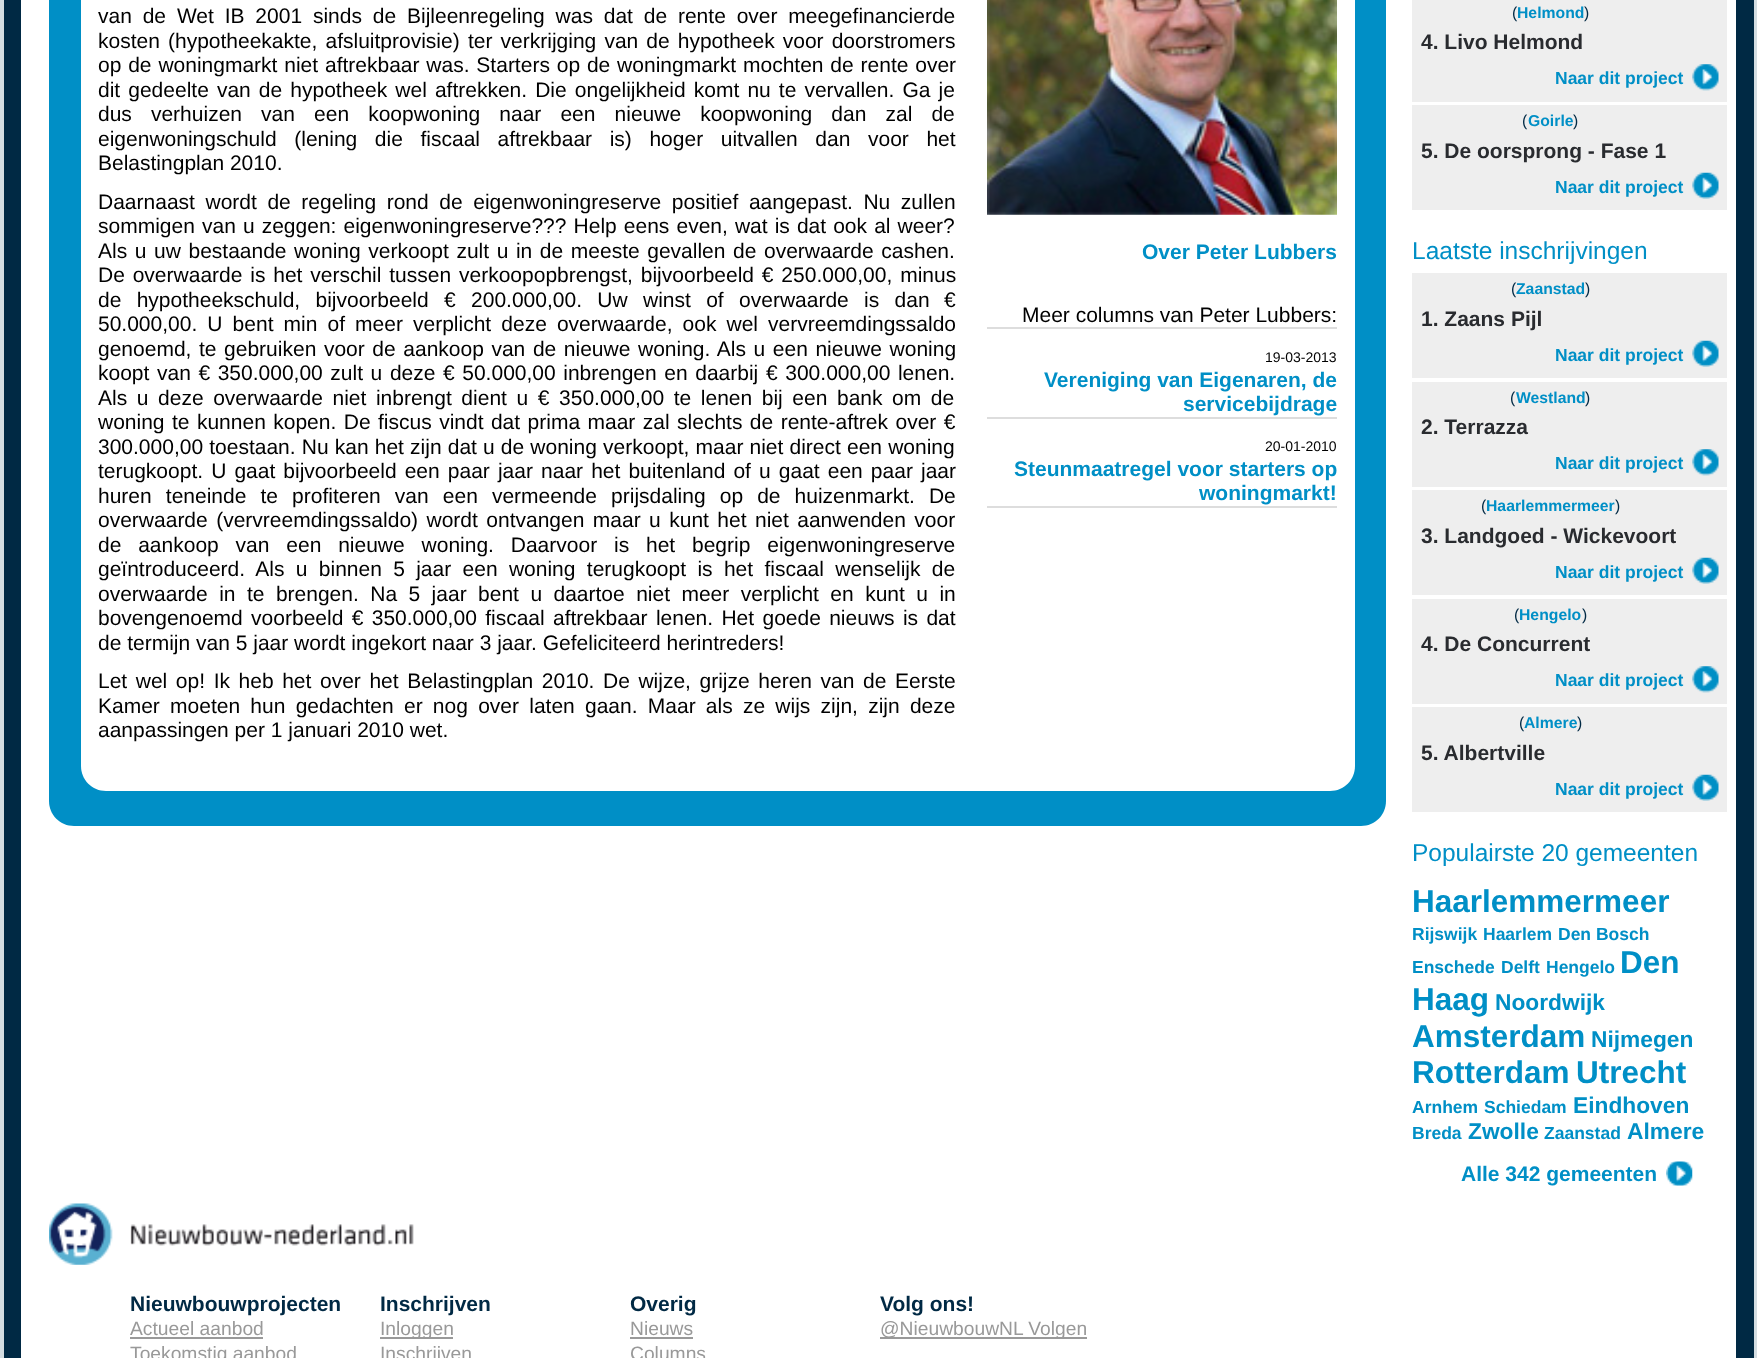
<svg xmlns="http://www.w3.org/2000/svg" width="1757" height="1358">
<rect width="100%" height="100%" fill="#d4dde2"/>
<path d="M131-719h1623v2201c0 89-69 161-154 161h-1596v-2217c0-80 57-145 127-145z" fill="#002944"/>
<path d="M124-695h1612v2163c0 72-55 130-122 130h-1593v-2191c0-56 46-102 103-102z" fill="#fff"/>
<path d="M74-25h1312v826c0 14-11 25-25 25h-1287c-14 0-25-11-25-25v-801c0-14 11-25 25-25z" fill="#008fc6"/>
<path d="M106-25h1249v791c0 14-11 25-25 25h-1224c-14 0-25-11-25-25v-766c0-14 11-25 25-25z" fill="#fff"/>
<text x="98" y="23" word-spacing="5" style="font-family:Liberation Sans;font-size:21px;fill:#000">van de Wet IB 2001 sinds de Bijleenregeling was dat de rente over meegefinancierde</text>
<text x="98" y="48" word-spacing="2.25" style="font-family:Liberation Sans;font-size:21px;fill:#000">kosten (hypotheekakte, afsluitprovisie)</text>
<text x="468" y="48" word-spacing="2.25" style="font-family:Liberation Sans;font-size:21px;fill:#000">ter verkrijging van de hypotheek voor doorstromers</text>
<text x="98" y="72" word-spacing="1" style="font-family:Liberation Sans;font-size:21px;fill:#000">op de woningmarkt niet aftrekbaar was. Starters op de woningmarkt mochten de rente over</text>
<text x="98" y="97" word-spacing="2.25" style="font-family:Liberation Sans;font-size:21px;fill:#000">dit gedeelte van de hypotheek wel aftrekken. Die ongelijkheid komt nu te vervallen. Ga je</text>
<text x="98" y="121" word-spacing="13.25" style="font-family:Liberation Sans;font-size:21px;fill:#000">dus verhuizen van een koopwoning naar een nieuwe koopwoning dan zal de</text>
<text x="98" y="146" word-spacing="11.75" style="font-family:Liberation Sans;font-size:21px;fill:#000">eigenwoningschuld (lening die fiscaal aftrekbaar is) hoger uitvallen dan voor het</text>
<text x="98" y="170" style="font-family:Liberation Sans;font-size:21px;fill:#000">Belastingplan 2010.</text>
<text x="98" y="209" word-spacing="4.75" style="font-family:Liberation Sans;font-size:21px;fill:#000">Daarnaast wordt de regeling rond de eigenwoningreserve positief aangepast. Nu zullen</text>
<text x="98" y="233" word-spacing="1.25" style="font-family:Liberation Sans;font-size:21px;fill:#000">sommigen van u zeggen: eigenwoningreserve??? Help eens even, wat is dat ook al weer?</text>
<text x="98" y="258" word-spacing="1.75" style="font-family:Liberation Sans;font-size:21px;fill:#000">Als u uw bestaande woning verkoopt zult u in de meeste gevallen de overwaarde cashen.</text>
<text x="98" y="282" word-spacing="2" style="font-family:Liberation Sans;font-size:21px;fill:#000">De overwaarde is het verschil tussen verkoopopbrengst, bijvoorbeeld € 250.000,00, minus</text>
<text x="98" y="307" word-spacing="9.5" style="font-family:Liberation Sans;font-size:21px;fill:#000">de hypotheekschuld, bijvoorbeeld € 200.000,00. Uw winst of overwaarde is dan</text>
<text x="944" y="307" style="font-family:Liberation Sans;font-size:21px;fill:#000">€</text>
<text x="98" y="331" word-spacing="4.25" style="font-family:Liberation Sans;font-size:21px;fill:#000">50.000,00. U bent min of meer verplicht deze overwaarde, ook wel vervreemdingssaldo</text>
<text x="98" y="356" word-spacing="1.75" style="font-family:Liberation Sans;font-size:21px;fill:#000">genoemd, te gebruiken voor de aankoop van de nieuwe woning. Als u een nieuwe woning</text>
<text x="98" y="380" word-spacing="1.75" style="font-family:Liberation Sans;font-size:21px;fill:#000">koopt van € 350.000,00 zult u deze € 50.000,00 inbrengen en daarbij</text>
<text x="766" y="380" word-spacing="1.75" style="font-family:Liberation Sans;font-size:21px;fill:#000">€ 300.000,00 lenen.</text>
<text x="98" y="405" word-spacing="3.75" style="font-family:Liberation Sans;font-size:21px;fill:#000">Als u deze overwaarde niet inbrengt dient u € 350.000,00 te lenen bij een bank om de</text>
<text x="98" y="429" word-spacing="1.6" style="font-family:Liberation Sans;font-size:21px;fill:#000">woning te kunnen kopen. De fiscus vindt dat prima maar zal slechts de rente-aftrek over €</text>
<text x="98" y="454" word-spacing="0.3" style="font-family:Liberation Sans;font-size:21px;fill:#000">300.000,00 toestaan. Nu kan het zijn dat u de woning verkoopt, maar niet direct een woning</text>
<text x="98" y="478" word-spacing="2.25" style="font-family:Liberation Sans;font-size:21px;fill:#000">terugkoopt. U gaat bijvoorbeeld een paar jaar naar het buitenland of u gaat een paar jaar</text>
<text x="98" y="503" word-spacing="8.25" style="font-family:Liberation Sans;font-size:21px;fill:#000">huren teneinde te profiteren van een vermeende prijsdaling op de huizenmarkt. De</text>
<text x="98" y="527" word-spacing="2.6" style="font-family:Liberation Sans;font-size:21px;fill:#000">overwaarde (vervreemdingssaldo) wordt ontvangen maar u kunt het niet aanwenden voor</text>
<text x="98" y="552" word-spacing="11" style="font-family:Liberation Sans;font-size:21px;fill:#000">de aankoop van een nieuwe woning. Daarvoor is het begrip eigenwoningreserve</text>
<text x="98" y="576" word-spacing="5.5" style="font-family:Liberation Sans;font-size:21px;fill:#000">geïntroduceerd. Als u binnen 5 jaar een woning terugkoopt is het fiscaal wenselijk de</text>
<text x="98" y="601" word-spacing="5.6" style="font-family:Liberation Sans;font-size:21px;fill:#000">overwaarde in te brengen. Na 5 jaar bent u daartoe niet meer verplicht en kunt u in</text>
<text x="98" y="625" word-spacing="2.5" style="font-family:Liberation Sans;font-size:21px;fill:#000">bovengenoemd voorbeeld € 350.000,00 fiscaal aftrekbaar lenen. Het goede nieuws is dat</text>
<text x="98" y="650" style="font-family:Liberation Sans;font-size:21px;fill:#000">de termijn van 5 jaar wordt ingekort naar 3 jaar. Gefeliciteerd herintreders!</text>
<text x="98" y="688" word-spacing="2.75" style="font-family:Liberation Sans;font-size:21px;fill:#000">Let wel op! Ik heb het over het Belastingplan 2010. De wijze, grijze heren van de Eerste</text>
<text x="98" y="713" word-spacing="4.4" style="font-family:Liberation Sans;font-size:21px;fill:#000">Kamer moeten hun gedachten er nog over laten gaan. Maar als ze wijs zijn, zijn deze</text>
<text x="98" y="737" style="font-family:Liberation Sans;font-size:21px;fill:#000">aanpassingen per 1 januari 2010 wet.</text>
<image x="987" y="0" width="350" height="215" href="media/1.png"/>
<text x="1142" y="259" style="font-family:Liberation Sans;font-size:21px;font-weight:bold;fill:#008fc6">Over Peter Lubbers</text>
<rect x="987" y="327" width="350" height="2" fill="#ddd"/>
<text x="1022" y="322" style="font-family:Liberation Sans;font-size:21px;fill:#000">Meer columns van Peter Lubbers:</text>
<rect x="987" y="417" width="350" height="2" fill="#ddd"/>
<text x="1265" y="362" style="font-family:Liberation Sans;font-size:14px;fill:#000">19-03-2013</text>
<text x="1044" y="387" style="font-family:Liberation Sans;font-size:21px;font-weight:bold;fill:#008fc6">Vereniging van Eigenaren, de</text>
<text x="1183" y="411" style="font-family:Liberation Sans;font-size:21px;font-weight:bold;fill:#008fc6">servicebijdrage</text>
<rect x="987" y="506" width="350" height="2" fill="#ddd"/>
<text x="1265" y="451" style="font-family:Liberation Sans;font-size:14px;fill:#000">20-01-2010</text>
<text x="1014" y="476" style="font-family:Liberation Sans;font-size:21px;font-weight:bold;fill:#008fc6">Steunmaatregel voor starters op</text>
<text x="1199" y="500" style="font-family:Liberation Sans;font-size:21px;font-weight:bold;fill:#008fc6">woningmarkt!</text>
<rect x="1412" width="315" height="102" fill="#eee"/>
<text x="1512" y="18" style="font-family:Liberation Sans;font-size:15.75px;fill:#002944">(</text>
<text x="1517" y="18" style="font-family:Liberation Sans;font-size:15.75px;font-weight:bold;fill:#008fc6">Helmond</text>
<text x="1584" y="18" style="font-family:Liberation Sans;font-size:15.75px;fill:#002944">)</text>
<text x="1421" y="49" style="font-family:Liberation Sans;font-size:21px;font-weight:bold;fill:#292b2f">4. Livo Helmond</text>
<image x="1692" y="64" width="27" height="27" href="media/2.png"/>
<text x="1555" y="84" style="font-family:Liberation Sans;font-size:17.5px;font-weight:bold;fill:#008fc6">Naar dit project</text>
<rect x="1412" y="105" width="315" height="105" fill="#eee"/>
<text x="1522" y="126" style="font-family:Liberation Sans;font-size:15.75px;fill:#002944">(</text>
<text x="1528" y="126" style="font-family:Liberation Sans;font-size:15.75px;font-weight:bold;fill:#008fc6">Goirle</text>
<text x="1573" y="126" style="font-family:Liberation Sans;font-size:15.75px;fill:#002944">)</text>
<text x="1421" y="158" style="font-family:Liberation Sans;font-size:21px;font-weight:bold;fill:#292b2f">5. De oorsprong - Fase 1</text>
<image x="1692" y="172" width="27" height="27" href="media/3.png"/>
<text x="1555" y="193" style="font-family:Liberation Sans;font-size:17.5px;font-weight:bold;fill:#008fc6">Naar dit project</text>
<text x="1412" y="259" style="font-family:Liberation Sans;font-size:24.5px;fill:#008fc6">Laatste inschrijvingen</text>
<rect x="1412" y="273" width="315" height="105" fill="#eee"/>
<text x="1511" y="294" style="font-family:Liberation Sans;font-size:15.75px;fill:#002944">(</text>
<text x="1516" y="294" style="font-family:Liberation Sans;font-size:15.75px;font-weight:bold;fill:#008fc6">Zaanstad</text>
<text x="1585" y="294" style="font-family:Liberation Sans;font-size:15.75px;fill:#002944">)</text>
<text x="1421" y="326" style="font-family:Liberation Sans;font-size:21px;font-weight:bold;fill:#292b2f">1. Zaans Pijl</text>
<image x="1692" y="340" width="27" height="27" href="media/3.png"/>
<text x="1555" y="361" style="font-family:Liberation Sans;font-size:17.5px;font-weight:bold;fill:#008fc6">Naar dit project</text>
<rect x="1412" y="382" width="315" height="105" fill="#eee"/>
<text x="1510" y="403" style="font-family:Liberation Sans;font-size:15.75px;fill:#002944">(</text>
<text x="1516" y="403" style="font-family:Liberation Sans;font-size:15.75px;font-weight:bold;fill:#008fc6">Westland</text>
<text x="1585" y="403" style="font-family:Liberation Sans;font-size:15.75px;fill:#002944">)</text>
<text x="1421" y="434" style="font-family:Liberation Sans;font-size:21px;font-weight:bold;fill:#292b2f">2. Terrazza</text>
<image x="1692" y="449" width="27" height="27" href="media/2.png"/>
<text x="1555" y="469" style="font-family:Liberation Sans;font-size:17.5px;font-weight:bold;fill:#008fc6">Naar dit project</text>
<rect x="1412" y="490" width="315" height="105" fill="#eee"/>
<text x="1481" y="511" style="font-family:Liberation Sans;font-size:15.75px;fill:#002944">(</text>
<text x="1486" y="511" style="font-family:Liberation Sans;font-size:15.75px;font-weight:bold;fill:#008fc6">Haarlemmermeer</text>
<text x="1615" y="511" style="font-family:Liberation Sans;font-size:15.75px;fill:#002944">)</text>
<text x="1421" y="543" style="font-family:Liberation Sans;font-size:21px;font-weight:bold;fill:#292b2f">3. Landgoed - Wickevoort</text>
<image x="1692" y="557" width="27" height="27" href="media/3.png"/>
<text x="1555" y="578" style="font-family:Liberation Sans;font-size:17.5px;font-weight:bold;fill:#008fc6">Naar dit project</text>
<rect x="1412" y="599" width="315" height="105" fill="#eee"/>
<text x="1514" y="620" style="font-family:Liberation Sans;font-size:15.75px;fill:#002944">(</text>
<text x="1519" y="620" style="font-family:Liberation Sans;font-size:15.75px;font-weight:bold;fill:#008fc6">Hengelo</text>
<text x="1582" y="620" style="font-family:Liberation Sans;font-size:15.75px;fill:#002944">)</text>
<text x="1421" y="651" style="font-family:Liberation Sans;font-size:21px;font-weight:bold;fill:#292b2f">4. De Concurrent</text>
<image x="1692" y="666" width="27" height="27" href="media/2.png"/>
<text x="1555" y="686" style="font-family:Liberation Sans;font-size:17.5px;font-weight:bold;fill:#008fc6">Naar dit project</text>
<rect x="1412" y="707" width="315" height="105" fill="#eee"/>
<text x="1519" y="728" style="font-family:Liberation Sans;font-size:15.75px;fill:#002944">(</text>
<text x="1524" y="728" style="font-family:Liberation Sans;font-size:15.75px;font-weight:bold;fill:#008fc6">Almere</text>
<text x="1577" y="728" style="font-family:Liberation Sans;font-size:15.75px;fill:#002944">)</text>
<text x="1421" y="760" style="font-family:Liberation Sans;font-size:21px;font-weight:bold;fill:#292b2f">5. Albertville</text>
<image x="1692" y="774" width="27" height="27" href="media/3.png"/>
<text x="1555" y="795" style="font-family:Liberation Sans;font-size:17.5px;font-weight:bold;fill:#008fc6">Naar dit project</text>
<text x="1412" y="861" style="font-family:Liberation Sans;font-size:24.5px;fill:#008fc6">Populairste 20 gemeenten</text>
<text x="1412" y="912" style="font-family:Liberation Sans;font-size:31.5px;font-weight:bold;fill:#008fc6">Haarlemmermeer</text>
<text x="1412" y="940" style="font-family:Liberation Sans;font-size:17.5px;font-weight:bold;fill:#008fc6">Rijswijk</text>
<text x="1483" y="940" style="font-family:Liberation Sans;font-size:17.5px;font-weight:bold;fill:#008fc6">Haarlem</text>
<text x="1558" y="940" style="font-family:Liberation Sans;font-size:17.5px;font-weight:bold;fill:#008fc6">Den Bosch</text>
<text x="1412" y="973" style="font-family:Liberation Sans;font-size:17.5px;font-weight:bold;fill:#008fc6">Enschede</text>
<text x="1501" y="973" style="font-family:Liberation Sans;font-size:17.5px;font-weight:bold;fill:#008fc6">Delft</text>
<text x="1546" y="973" style="font-family:Liberation Sans;font-size:17.5px;font-weight:bold;fill:#008fc6">Hengelo</text>
<text x="1620" y="973" style="font-family:Liberation Sans;font-size:31.5px;font-weight:bold;fill:#008fc6">Den</text>
<text x="1412" y="1010" style="font-family:Liberation Sans;font-size:31.5px;font-weight:bold;fill:#008fc6">Haag</text>
<text x="1495" y="1010" style="font-family:Liberation Sans;font-size:22.75px;font-weight:bold;fill:#008fc6">Noordwijk</text>
<text x="1412" y="1047" style="font-family:Liberation Sans;font-size:31.5px;font-weight:bold;fill:#008fc6">Amsterdam</text>
<text x="1591" y="1047" style="font-family:Liberation Sans;font-size:22.75px;font-weight:bold;fill:#008fc6">Nijmegen</text>
<text x="1412" y="1083" style="font-family:Liberation Sans;font-size:31.5px;font-weight:bold;fill:#008fc6">Rotterdam</text>
<text x="1576" y="1083" style="font-family:Liberation Sans;font-size:31.5px;font-weight:bold;fill:#008fc6">Utrecht</text>
<text x="1412" y="1113" style="font-family:Liberation Sans;font-size:17.5px;font-weight:bold;fill:#008fc6">Arnhem</text>
<text x="1484" y="1113" style="font-family:Liberation Sans;font-size:17.5px;font-weight:bold;fill:#008fc6">Schiedam</text>
<text x="1573" y="1113" style="font-family:Liberation Sans;font-size:22.75px;font-weight:bold;fill:#008fc6">Eindhoven</text>
<text x="1412" y="1139" style="font-family:Liberation Sans;font-size:17.5px;font-weight:bold;fill:#008fc6">Breda</text>
<text x="1468" y="1139" style="font-family:Liberation Sans;font-size:22.75px;font-weight:bold;fill:#008fc6">Zwolle</text>
<text x="1544" y="1139" style="font-family:Liberation Sans;font-size:17.5px;font-weight:bold;fill:#008fc6">Zaanstad</text>
<text x="1627" y="1139" style="font-family:Liberation Sans;font-size:22.75px;font-weight:bold;fill:#008fc6">Almere</text>
<image x="1666" y="1161" width="27" height="25" href="media/4.png"/>
<text x="1461" y="1181" style="font-family:Liberation Sans;font-size:21px;font-weight:bold;fill:#008fc6">Alle 342 gemeenten</text>
<image x="49" y="1203" width="365" height="62" href="media/5.png"/>
<text x="130" y="1311" style="font-family:Liberation Sans;font-size:21px;font-weight:bold;fill:#002944">Nieuwbouwprojecten</text>
<text x="130" y="1335" style="font-family:Liberation Sans;font-size:19.25px;fill:#999">Actueel aanbod</text>
<rect x="130" y="1337" width="133" height="2" fill="#999"/>
<text x="130" y="1360" style="font-family:Liberation Sans;font-size:19.25px;fill:#999">Toekomstig aanbod</text>
<text x="380" y="1311" style="font-family:Liberation Sans;font-size:21px;font-weight:bold;fill:#002944">Inschrijven</text>
<rect x="380" y="1337" width="73" height="2" fill="#999"/>
<text x="380" y="1335" style="font-family:Liberation Sans;font-size:19.25px;fill:#999">Inloggen</text>
<text x="380" y="1360" style="font-family:Liberation Sans;font-size:19.25px;fill:#999">Inschrijven</text>
<text x="630" y="1311" style="font-family:Liberation Sans;font-size:21px;font-weight:bold;fill:#002944">Overig</text>
<text x="630" y="1335" style="font-family:Liberation Sans;font-size:19.25px;fill:#999">Nieuws</text>
<rect x="630" y="1337" width="63" height="2" fill="#999"/>
<text x="630" y="1360" style="font-family:Liberation Sans;font-size:19.25px;fill:#999">Columns</text>
<text x="880" y="1311" style="font-family:Liberation Sans;font-size:21px;font-weight:bold;fill:#002944">Volg ons!</text>
<rect x="880" y="1337" width="207" height="2" fill="#999"/>
<text x="880" y="1335" style="font-family:Liberation Sans;font-size:19.25px;fill:#999">@NieuwbouwNL Volgen</text>
</svg>
